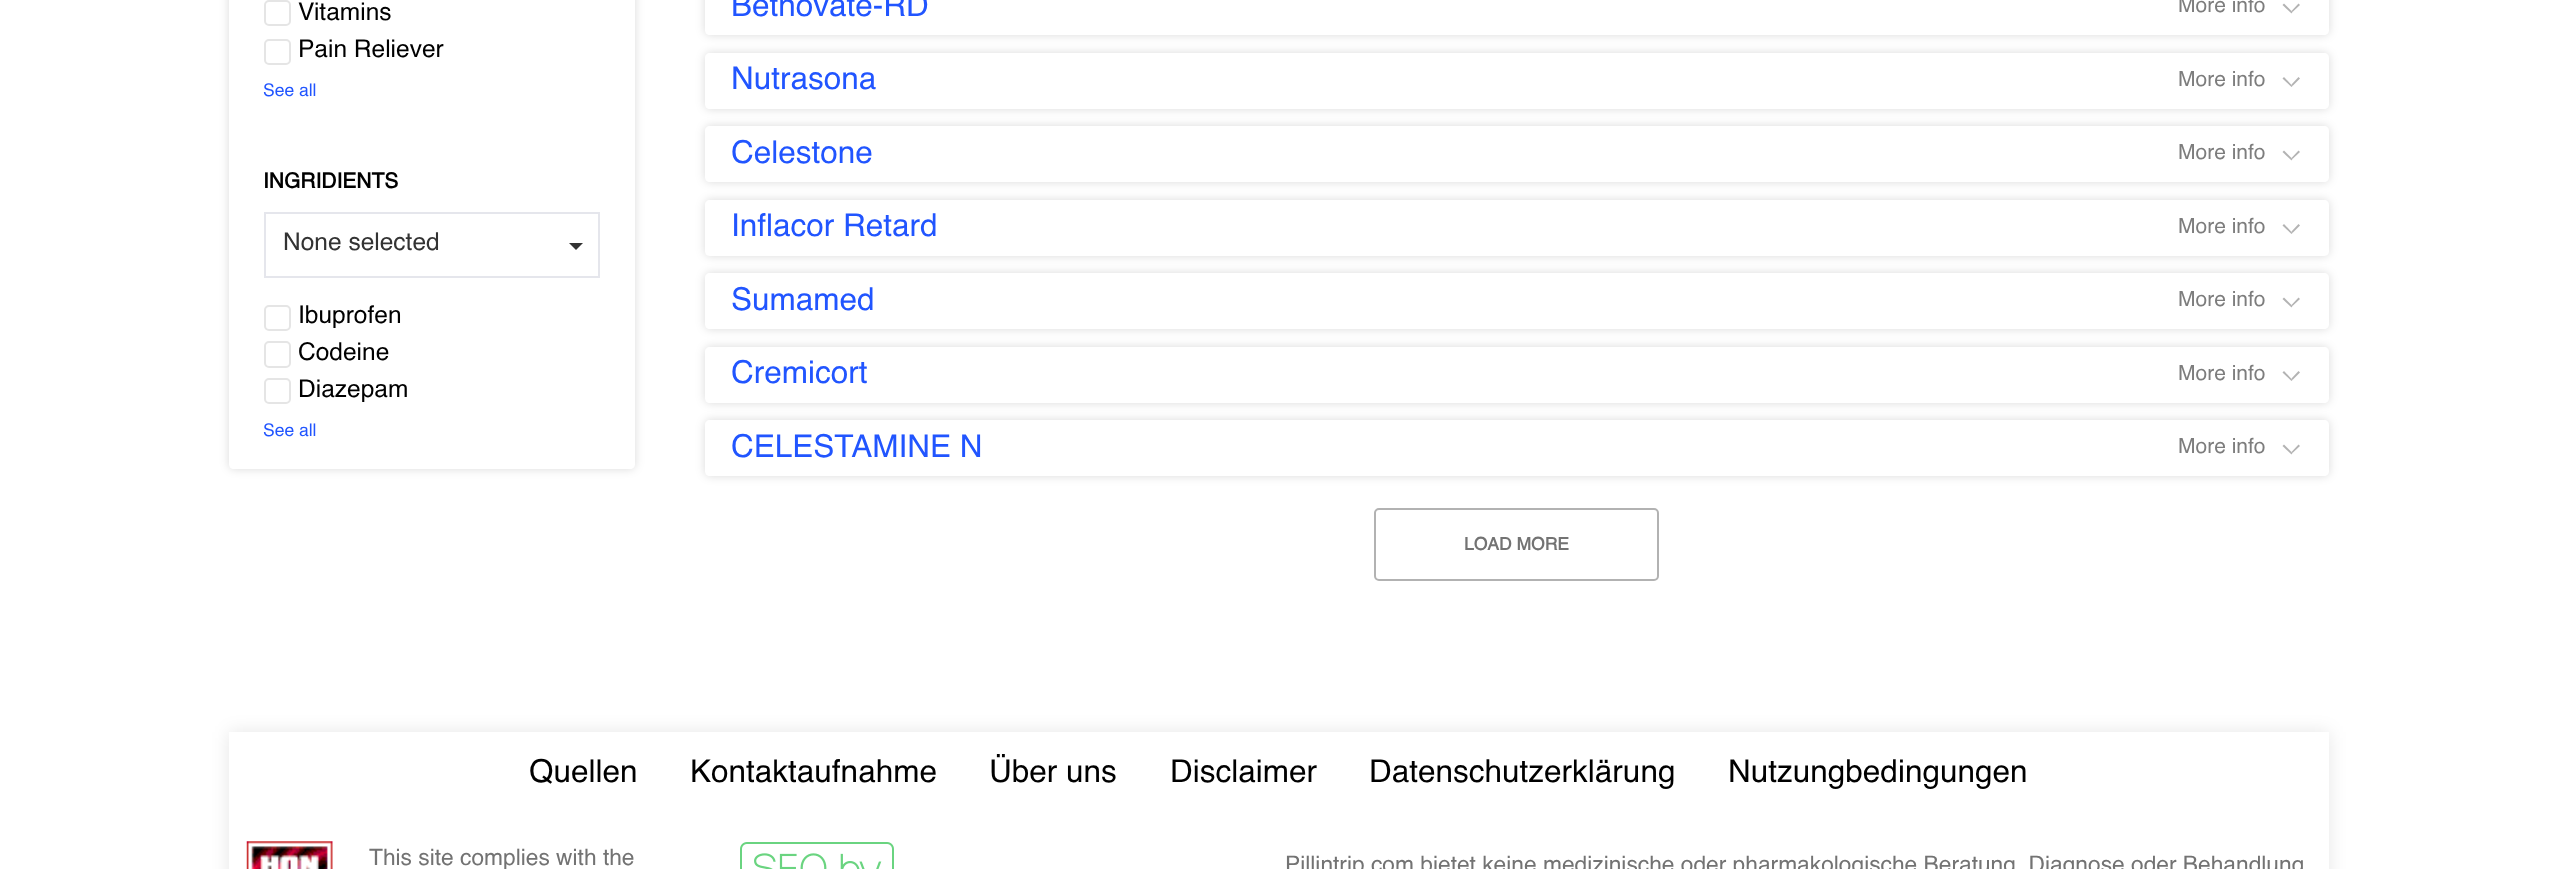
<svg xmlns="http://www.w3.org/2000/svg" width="2556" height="869">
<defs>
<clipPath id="clip1"><path d="M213 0h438v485h-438zm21-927h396c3 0 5 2 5 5v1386c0 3-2 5-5 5h-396c-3 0-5-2-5-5v-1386c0-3 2-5 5-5z" clip-rule="evenodd"/></clipPath>
<clipPath id="clip2"><path d="M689 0h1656v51h-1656zm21-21h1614c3 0 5 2 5 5v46c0 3-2 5-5 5h-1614c-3 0-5-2-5-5v-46c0-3 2-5 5-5z" clip-rule="evenodd"/></clipPath>
<clipPath id="clip3"><path d="M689 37h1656v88h-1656zm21 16h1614c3 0 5 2 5 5v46c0 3-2 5-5 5h-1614c-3 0-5-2-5-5v-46c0-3 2-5 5-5z" clip-rule="evenodd"/></clipPath>
<clipPath id="clip4"><path d="M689 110h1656v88h-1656zm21 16h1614c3 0 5 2 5 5v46c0 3-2 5-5 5h-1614c-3 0-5-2-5-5v-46c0-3 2-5 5-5z" clip-rule="evenodd"/></clipPath>
<clipPath id="clip5"><path d="M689 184h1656v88h-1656zm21 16h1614c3 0 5 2 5 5v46c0 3-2 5-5 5h-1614c-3 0-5-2-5-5v-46c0-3 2-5 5-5z" clip-rule="evenodd"/></clipPath>
<clipPath id="clip6"><path d="M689 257h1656v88h-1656zm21 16h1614c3 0 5 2 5 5v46c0 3-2 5-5 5h-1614c-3 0-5-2-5-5v-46c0-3 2-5 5-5z" clip-rule="evenodd"/></clipPath>
<clipPath id="clip7"><path d="M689 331h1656v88h-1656zm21 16h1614c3 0 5 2 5 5v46c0 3-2 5-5 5h-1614c-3 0-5-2-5-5v-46c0-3 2-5 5-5z" clip-rule="evenodd"/></clipPath>
<clipPath id="clip8"><path d="M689 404h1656v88h-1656zm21 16h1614c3 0 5 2 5 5v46c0 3-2 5-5 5h-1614c-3 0-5-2-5-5v-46c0-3 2-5 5-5z" clip-rule="evenodd"/></clipPath>
<clipPath id="clip9"><path d="M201 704h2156v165h-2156zm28 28h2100v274h-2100z" clip-rule="evenodd"/></clipPath>
</defs>
<rect width="100%" height="100%" fill="#fff"/>
<g clip-path="url(#clip1)">
<rect x="229" y="-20" width="406" height="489" rx="5" fill="#00000026" filter="blur(5px)"/>
</g>
<rect x="265" y="1" width="25" height="24" rx="4" fill="none" stroke="#e5e5e5" stroke-width="2"/>
<text x="298" y="20" style="font-family:Helvetica;font-size:24.5px;fill:#000">Vitamins</text>
<rect x="265" y="40" width="25" height="24" rx="4" fill="none" stroke="#e5e5e5" stroke-width="2"/>
<text x="298" y="57" style="font-family:Helvetica;font-size:24.5px;fill:#000">Pain Reliever</text>
<text x="263" y="96" style="font-family:Helvetica;font-size:17.5px;fill:#2155ff">See all</text>
<text x="263" y="188" style="font-family:Helvetica;font-size:21px;font-weight:bold;fill:#000">INGRIDIENTS</text>
<rect x="265" y="213" width="334" height="64" fill="none" stroke="#e5e6ec" stroke-width="2"/>
<text x="283" y="250" style="font-family:Helvetica;font-size:24.5px;fill:#333">None selected</text>
<path d="M569 243h14l-7 7z" fill="#333"/>
<rect x="265" y="306" width="25" height="24" rx="4" fill="none" stroke="#e5e5e5" stroke-width="2"/>
<text x="298" y="323" style="font-family:Helvetica;font-size:24.5px;fill:#000">Ibuprofen</text>
<rect x="265" y="342" width="25" height="25" rx="4" fill="none" stroke="#e5e5e5" stroke-width="2"/>
<text x="298" y="360" style="font-family:Helvetica;font-size:24.5px;fill:#000">Codeine</text>
<rect x="265" y="379" width="25" height="24" rx="4" fill="none" stroke="#e5e5e5" stroke-width="2"/>
<text x="298" y="397" style="font-family:Helvetica;font-size:24.5px;fill:#000">Diazepam</text>
<text x="263" y="436" style="font-family:Helvetica;font-size:17.5px;fill:#2155ff">See all</text>
<g clip-path="url(#clip2)">
<rect x="705" y="-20" width="1624" height="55" rx="5" fill="#00000026" filter="blur(5px)"/>
</g>
<text x="731" y="16" style="font-family:Helvetica;font-size:31.5px;fill:#2155ff">Betnovate-RD</text>
<text x="2178" y="12" style="font-family:Helvetica;font-size:21px;fill:#7d7d7d">More info</text>
<path d="M2284 3.5l8.5 8.5l-1 1.5l-9-8.5z" fill="#b3b3b3"/>
<path d="M2300 5l-7.5 7l-1-1l7-7.5z" fill="#b3b3b3"/>
<g clip-path="url(#clip3)">
<rect x="705" y="53" width="1624" height="56" rx="5" fill="#00000026" filter="blur(5px)"/>
</g>
<text x="731" y="89" style="font-family:Helvetica;font-size:31.5px;fill:#2155ff">Nutrasona</text>
<text x="2178" y="86" style="font-family:Helvetica;font-size:21px;fill:#7d7d7d">More info</text>
<path d="M2284 77l8.5 9l-1 1l-9-8.5z" fill="#b3b3b3"/>
<path d="M2300 78.5l-7.5 7.5l-1-1.5l7-7.5z" fill="#b3b3b3"/>
<g clip-path="url(#clip4)">
<rect x="705" y="126" width="1624" height="56" rx="5" fill="#00000026" filter="blur(5px)"/>
</g>
<text x="731" y="163" style="font-family:Helvetica;font-size:31.5px;fill:#2155ff">Celestone</text>
<text x="2178" y="159" style="font-family:Helvetica;font-size:21px;fill:#7d7d7d">More info</text>
<path d="M2284 150.5l8.5 8.5l-1 1.5l-9-8.5z" fill="#b3b3b3"/>
<path d="M2300 152l-7.5 7l-1-1l7-7.5z" fill="#b3b3b3"/>
<g clip-path="url(#clip5)">
<rect x="705" y="200" width="1624" height="56" rx="5" fill="#00000026" filter="blur(5px)"/>
</g>
<text x="731" y="236" style="font-family:Helvetica;font-size:31.5px;fill:#2155ff">Inflacor Retard</text>
<text x="2178" y="233" style="font-family:Helvetica;font-size:21px;fill:#7d7d7d">More info</text>
<path d="M2284 224l8.5 9l-1 1l-9-8.5z" fill="#b3b3b3"/>
<path d="M2300 225.5l-7.5 7.5l-1-1.5l7-7.5z" fill="#b3b3b3"/>
<g clip-path="url(#clip6)">
<rect x="705" y="273" width="1624" height="56" rx="5" fill="#00000026" filter="blur(5px)"/>
</g>
<text x="731" y="310" style="font-family:Helvetica;font-size:31.5px;fill:#2155ff">Sumamed</text>
<text x="2178" y="306" style="font-family:Helvetica;font-size:21px;fill:#7d7d7d">More info</text>
<path d="M2284 297.5l8.5 8.5l-1 1.5l-9-8.5z" fill="#b3b3b3"/>
<path d="M2300 299l-7.5 7l-1-1l7-7.5z" fill="#b3b3b3"/>
<g clip-path="url(#clip7)">
<rect x="705" y="347" width="1624" height="56" rx="5" fill="#00000026" filter="blur(5px)"/>
</g>
<text x="731" y="383" style="font-family:Helvetica;font-size:31.5px;fill:#2155ff">Cremicort</text>
<text x="2178" y="380" style="font-family:Helvetica;font-size:21px;fill:#7d7d7d">More info</text>
<path d="M2284 371l8.5 9l-1 1l-9-8.5z" fill="#b3b3b3"/>
<path d="M2300 372.5l-7.5 7.5l-1-1.5l7-7.5z" fill="#b3b3b3"/>
<g clip-path="url(#clip8)">
<rect x="705" y="420" width="1624" height="56" rx="5" fill="#00000026" filter="blur(5px)"/>
</g>
<text x="731" y="457" style="font-family:Helvetica;font-size:31.5px;fill:#2155ff">CELESTAMINE N</text>
<text x="2178" y="453" style="font-family:Helvetica;font-size:21px;fill:#7d7d7d">More info</text>
<path d="M2284 444.5l8.5 8.5l-1 1.5l-9-8.5z" fill="#b3b3b3"/>
<path d="M2300 446l-7.5 7l-1-1l7-7.5z" fill="#b3b3b3"/>
<rect x="1375" y="509" width="283" height="71" rx="4" fill="none" stroke="#b2b2b2" stroke-width="2"/>
<text x="1464" y="550" style="font-family:Helvetica;font-size:17.5px;font-weight:bold;fill:#737373">LOAD MORE</text>
<g clip-path="url(#clip9)">
<rect x="229" y="732" width="2100" height="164" fill="#0000001a" filter="blur(9px)"/>
</g>
<text x="529" y="782" style="font-family:Helvetica;font-size:31.5px;fill:#000">Quellen</text>
<text x="690" y="782" style="font-family:Helvetica;font-size:31.5px;fill:#000">Kontaktaufnahme</text>
<text x="989" y="782" style="font-family:Helvetica;font-size:31.5px;fill:#000">Über uns</text>
<text x="1170" y="782" style="font-family:Helvetica;font-size:31.5px;fill:#000">Disclaimer</text>
<text x="1369" y="782" style="font-family:Helvetica;font-size:31.5px;fill:#000">Datenschutzerklärung</text>
<text x="1728" y="782" style="font-family:Helvetica;font-size:31.5px;fill:#000">Nutzungbedingungen</text>
<image x="246" y="841" width="87" height="28" href="media/1.png"/>
<text x="369" y="865" style="font-family:Helvetica;font-size:22.75px;fill:#737373">This site complies with the</text>
<image x="740" y="842" width="154" height="27" href="media/2.png"/>
<text x="1285" y="872" style="font-family:Helvetica;font-size:22.75px;fill:#737373">Pillintrip.com bietet keine medizinische oder pharmakologische Beratung, Diagnose oder Behandlung</text>
</svg>
